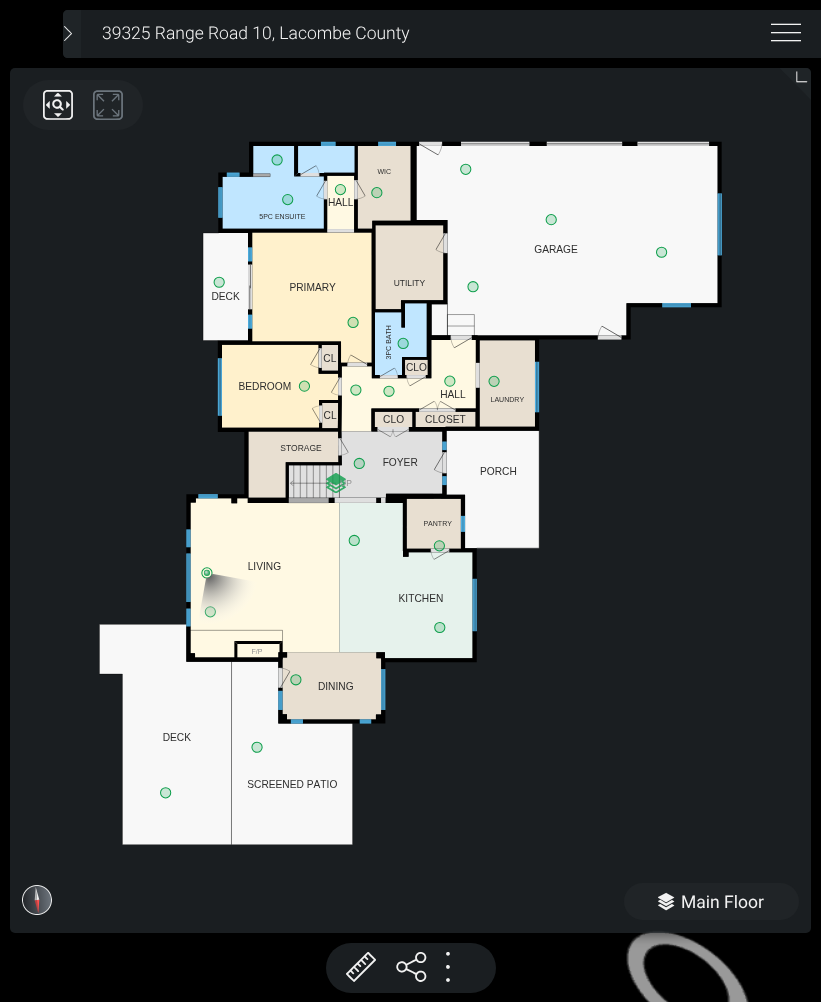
<svg xmlns="http://www.w3.org/2000/svg" width="821" height="1002">
<style>*{font-kerning:none!important;font-variant-ligatures:none!important}</style>
<defs>
<clipPath id="clip1"><path d="M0 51h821v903h-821zm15 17h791c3 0 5 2 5 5v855c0 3-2 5-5 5h-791c-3 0-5-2-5-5v-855c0-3 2-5 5-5z" clip-rule="evenodd"/></clipPath>
</defs>
<rect width="100%" height="100%" fill="#000"/>
<image x="626" y="930" width="123" height="72" href="media/3.png"/>
<image x="381" y="493" width="60" height="35" href="media/4.png"/>
<g clip-path="url(#clip1)">
<rect x="13" y="70" width="801" height="865" rx="5" fill="#00000080" filter="blur(6px)"/>
</g>
<path d="M68 10h753v48h-753c-3 0-5-2-5-5v-38c0-3 2-5 5-5z" fill="#1a1e21"/>
<path d="M68 10h13v48h-13c-3 0-5-2-5-5v-38c0-3 2-5 5-5z" fill="#212529cc"/>
<text x="64" y="40" style="font-family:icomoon;font-size:15px;fill:#f2f2f2">🕃</text>
<text x="102" y="39" style="font-family:Roboto;font-size:17.5px;font-weight:300;fill:#f2f2f2">39325 Range Road 10, Lacombe County</text>
<text x="771" y="46" style="font-family:icomoon;font-size:30px;fill:#f2f2f2">🕂</text>
<rect x="10" y="68" width="801" height="865" rx="5" fill="#212529cc"/>
<path d="M811 100v-27c0-3-2-5-5-5h-26.5z" fill="#212529cc"/>
<text x="790" y="78" transform="rotate(45 790 78)" style="font-family:icomoon;font-size:15px;fill:#f2f2f2">🖭</text>
<rect x="23" y="80" width="120" height="50" rx="25" fill="#202427"/>
<text x="43" y="118" style="font-family:icomoon;font-size:30px;fill:#f2f2f2">🕫</text>
<text x="93" y="118" style="font-family:icomoon;font-size:30px;fill:#6c757d">🖮</text>
<image x="22" y="885" width="30" height="30" href="media/1.png"/>
<rect x="624" y="883" width="175" height="37" rx="18.5" fill="#202427"/>
<text x="658" y="909" style="font-family:icomoon;font-size:17.5px;fill:#f2f2f2">🔾</text>
<text x="681" y="908" style="font-family:Roboto;font-size:17.5px;fill:#f2f2f2">Main Floor</text>
<image x="99" y="141" width="623" height="704" href="media/2.png"/>
<rect x="326" y="943" width="170" height="50" rx="25" fill="#1a1e21"/>
<text x="346" y="980" style="font-family:icomoon;font-size:30px;fill:#f2f2f2">🖫</text>
<text x="396" y="980" style="font-family:icomoon;font-size:30px;fill:#f2f2f2">🖁</text>
<text x="446" y="980" style="font-family:icomoon;font-size:30px;fill:#f2f2f2">🕻</text>
</svg>
